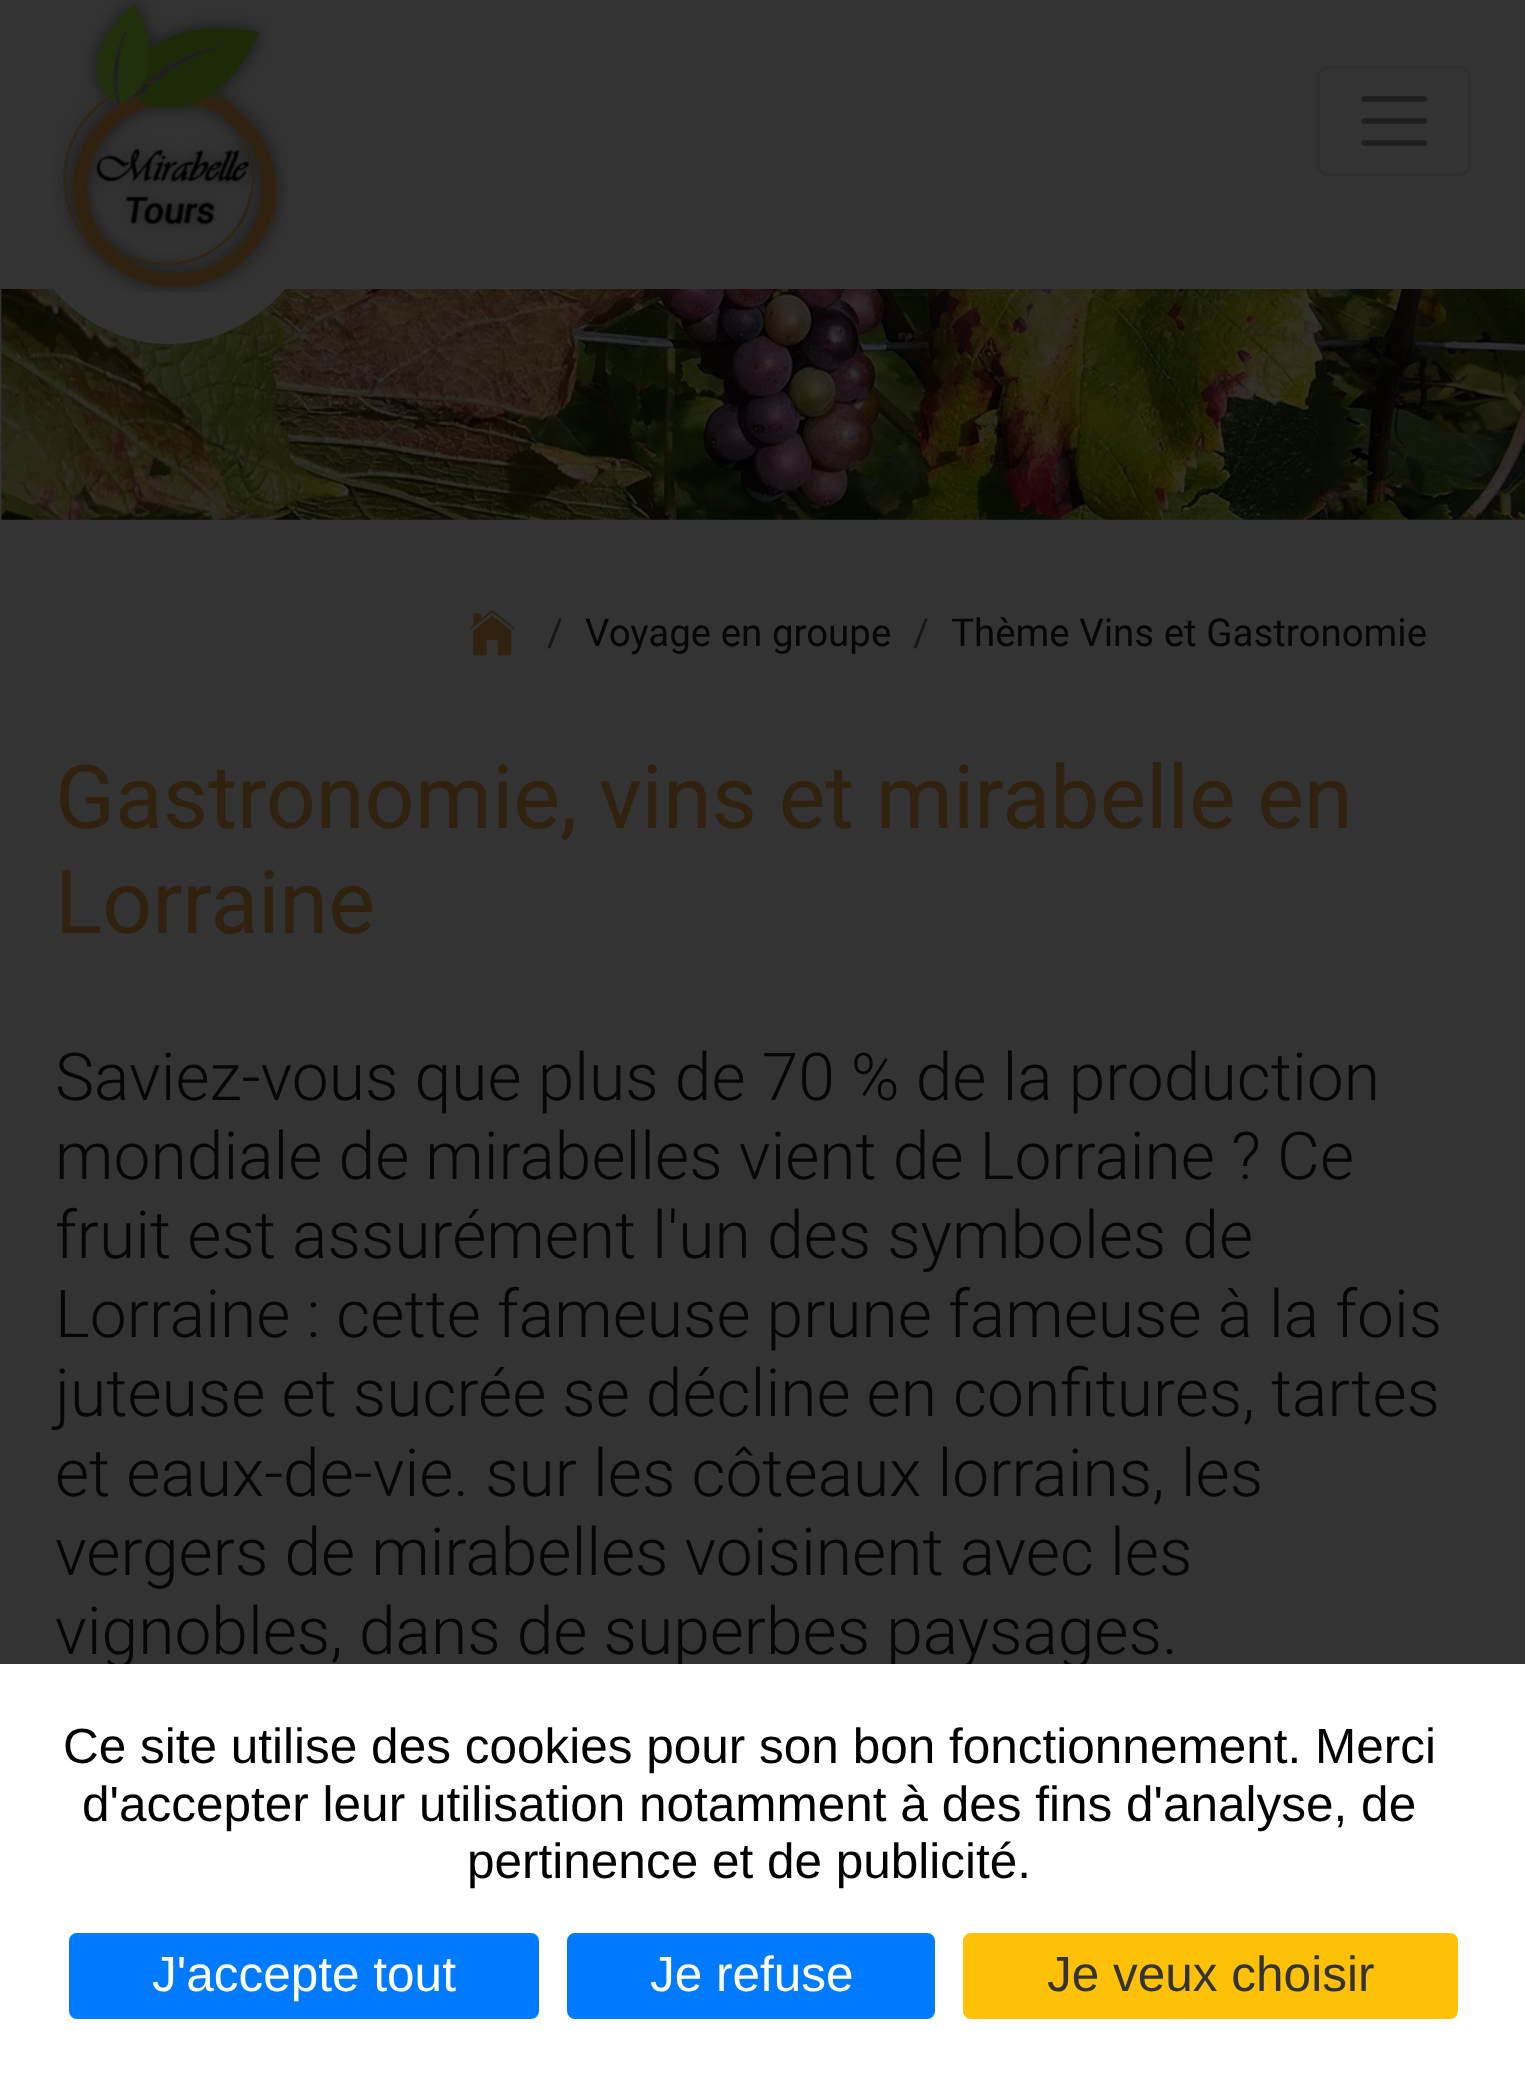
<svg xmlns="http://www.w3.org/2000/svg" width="1525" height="2087">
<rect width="100%" height="100%" fill="#333"/>
<image x="1" y="289" width="1524" height="231" href="media/2.png"/>
<ellipse cx="169" cy="144.5" rx="169" ry="199.5" fill="#333"/>
<image x="53" y="0" width="236" height="292" href="media/1.png"/>
<rect x="1318.5" y="67.5" width="151" height="107" rx="9.5" fill="none" stroke="#2e2e2e" stroke-width="3"/>
<path d="M1364 99h60.5m-60.5 22h60.5m-60.5 22h60.5" fill="none" stroke="#1f1f1f" stroke-width="5.5" stroke-linecap="round"/>
<image x="469" y="609" width="46" height="47" href="media/3.png"/>
<text x="547" y="646" style="font-family:Roboto;font-size:38.5px;fill:#161719">/</text>
<text x="585" y="646" style="font-family:Roboto;font-size:38.5px;fill:#060606">Voyage en groupe</text>
<text x="913" y="646" style="font-family:Roboto;font-size:38.5px;fill:#161719">/</text>
<text x="951" y="646" style="font-family:Roboto;font-size:38.5px;fill:#060606">Thème Vins et Gastronomie</text>
<text x="55" y="828" style="font-family:Roboto;font-size:88px;fill:#30220f">Gastronomie, vins et mirabelle en</text>
<text x="55" y="933" style="font-family:Roboto;font-size:88px;fill:#30220f">Lorraine</text>
<text x="55" y="1100" style="font-family:Roboto;font-size:66px;font-weight:300;fill:#060606">Saviez-vous que plus de 70 % de la production</text>
<text x="55" y="1179" style="font-family:Roboto;font-size:66px;font-weight:300;fill:#060606">mondiale de mirabelles vient de Lorraine ? Ce</text>
<text x="55" y="1258" style="font-family:Roboto;font-size:66px;font-weight:300;fill:#060606">fruit est assurément l'un des symboles de</text>
<text x="55" y="1337" style="font-family:Roboto;font-size:66px;font-weight:300;fill:#060606">Lorraine : cette fameuse prune fameuse à la fois</text>
<text x="55" y="1416" style="font-family:Roboto;font-size:66px;font-weight:300;fill:#060606">juteuse et sucrée se décline en confitures, tartes</text>
<text x="55" y="1496" style="font-family:Roboto;font-size:66px;font-weight:300;fill:#060606">et eaux-de-vie. sur les côteaux lorrains, les</text>
<text x="55" y="1575" style="font-family:Roboto;font-size:66px;font-weight:300;fill:#060606">vergers de mirabelles voisinent avec les</text>
<text x="55" y="1654" style="font-family:Roboto;font-size:66px;font-weight:300;fill:#060606">vignobles, dans de superbes paysages.</text>
<rect y="1664" width="1525" height="423" fill="#fff"/>
<text x="63" y="1763" style="font-family:Liberation Sans;font-size:49.5px;fill:#000">Ce site utilise des cookies pour son bon fonctionnement. Merci</text>
<text x="82" y="1821" style="font-family:Liberation Sans;font-size:49.5px;fill:#000">d'accepter leur utilisation notamment à des fins d'analyse, de</text>
<text x="467" y="1878" style="font-family:Liberation Sans;font-size:49.5px;fill:#000">pertinence et de publicité.</text>
<rect x="70.5" y="1934.5" width="467" height="83" rx="6.5" fill="#007bff" stroke="#007bff" stroke-width="3"/>
<text x="152" y="1991" style="font-family:Liberation Sans;font-size:49.5px;fill:#fff">J'accepte tout</text>
<rect x="568.5" y="1934.5" width="365" height="83" rx="6.5" fill="#007bff" stroke="#007bff" stroke-width="3"/>
<text x="650" y="1991" style="font-family:Liberation Sans;font-size:49.5px;fill:#fff">Je refuse</text>
<rect x="964.5" y="1934.5" width="492" height="83" rx="6.5" fill="#ffc107" stroke="#ffc107" stroke-width="3"/>
<text x="1047" y="1991" style="font-family:Liberation Sans;font-size:49.5px;fill:#333">Je veux choisir</text>
</svg>
